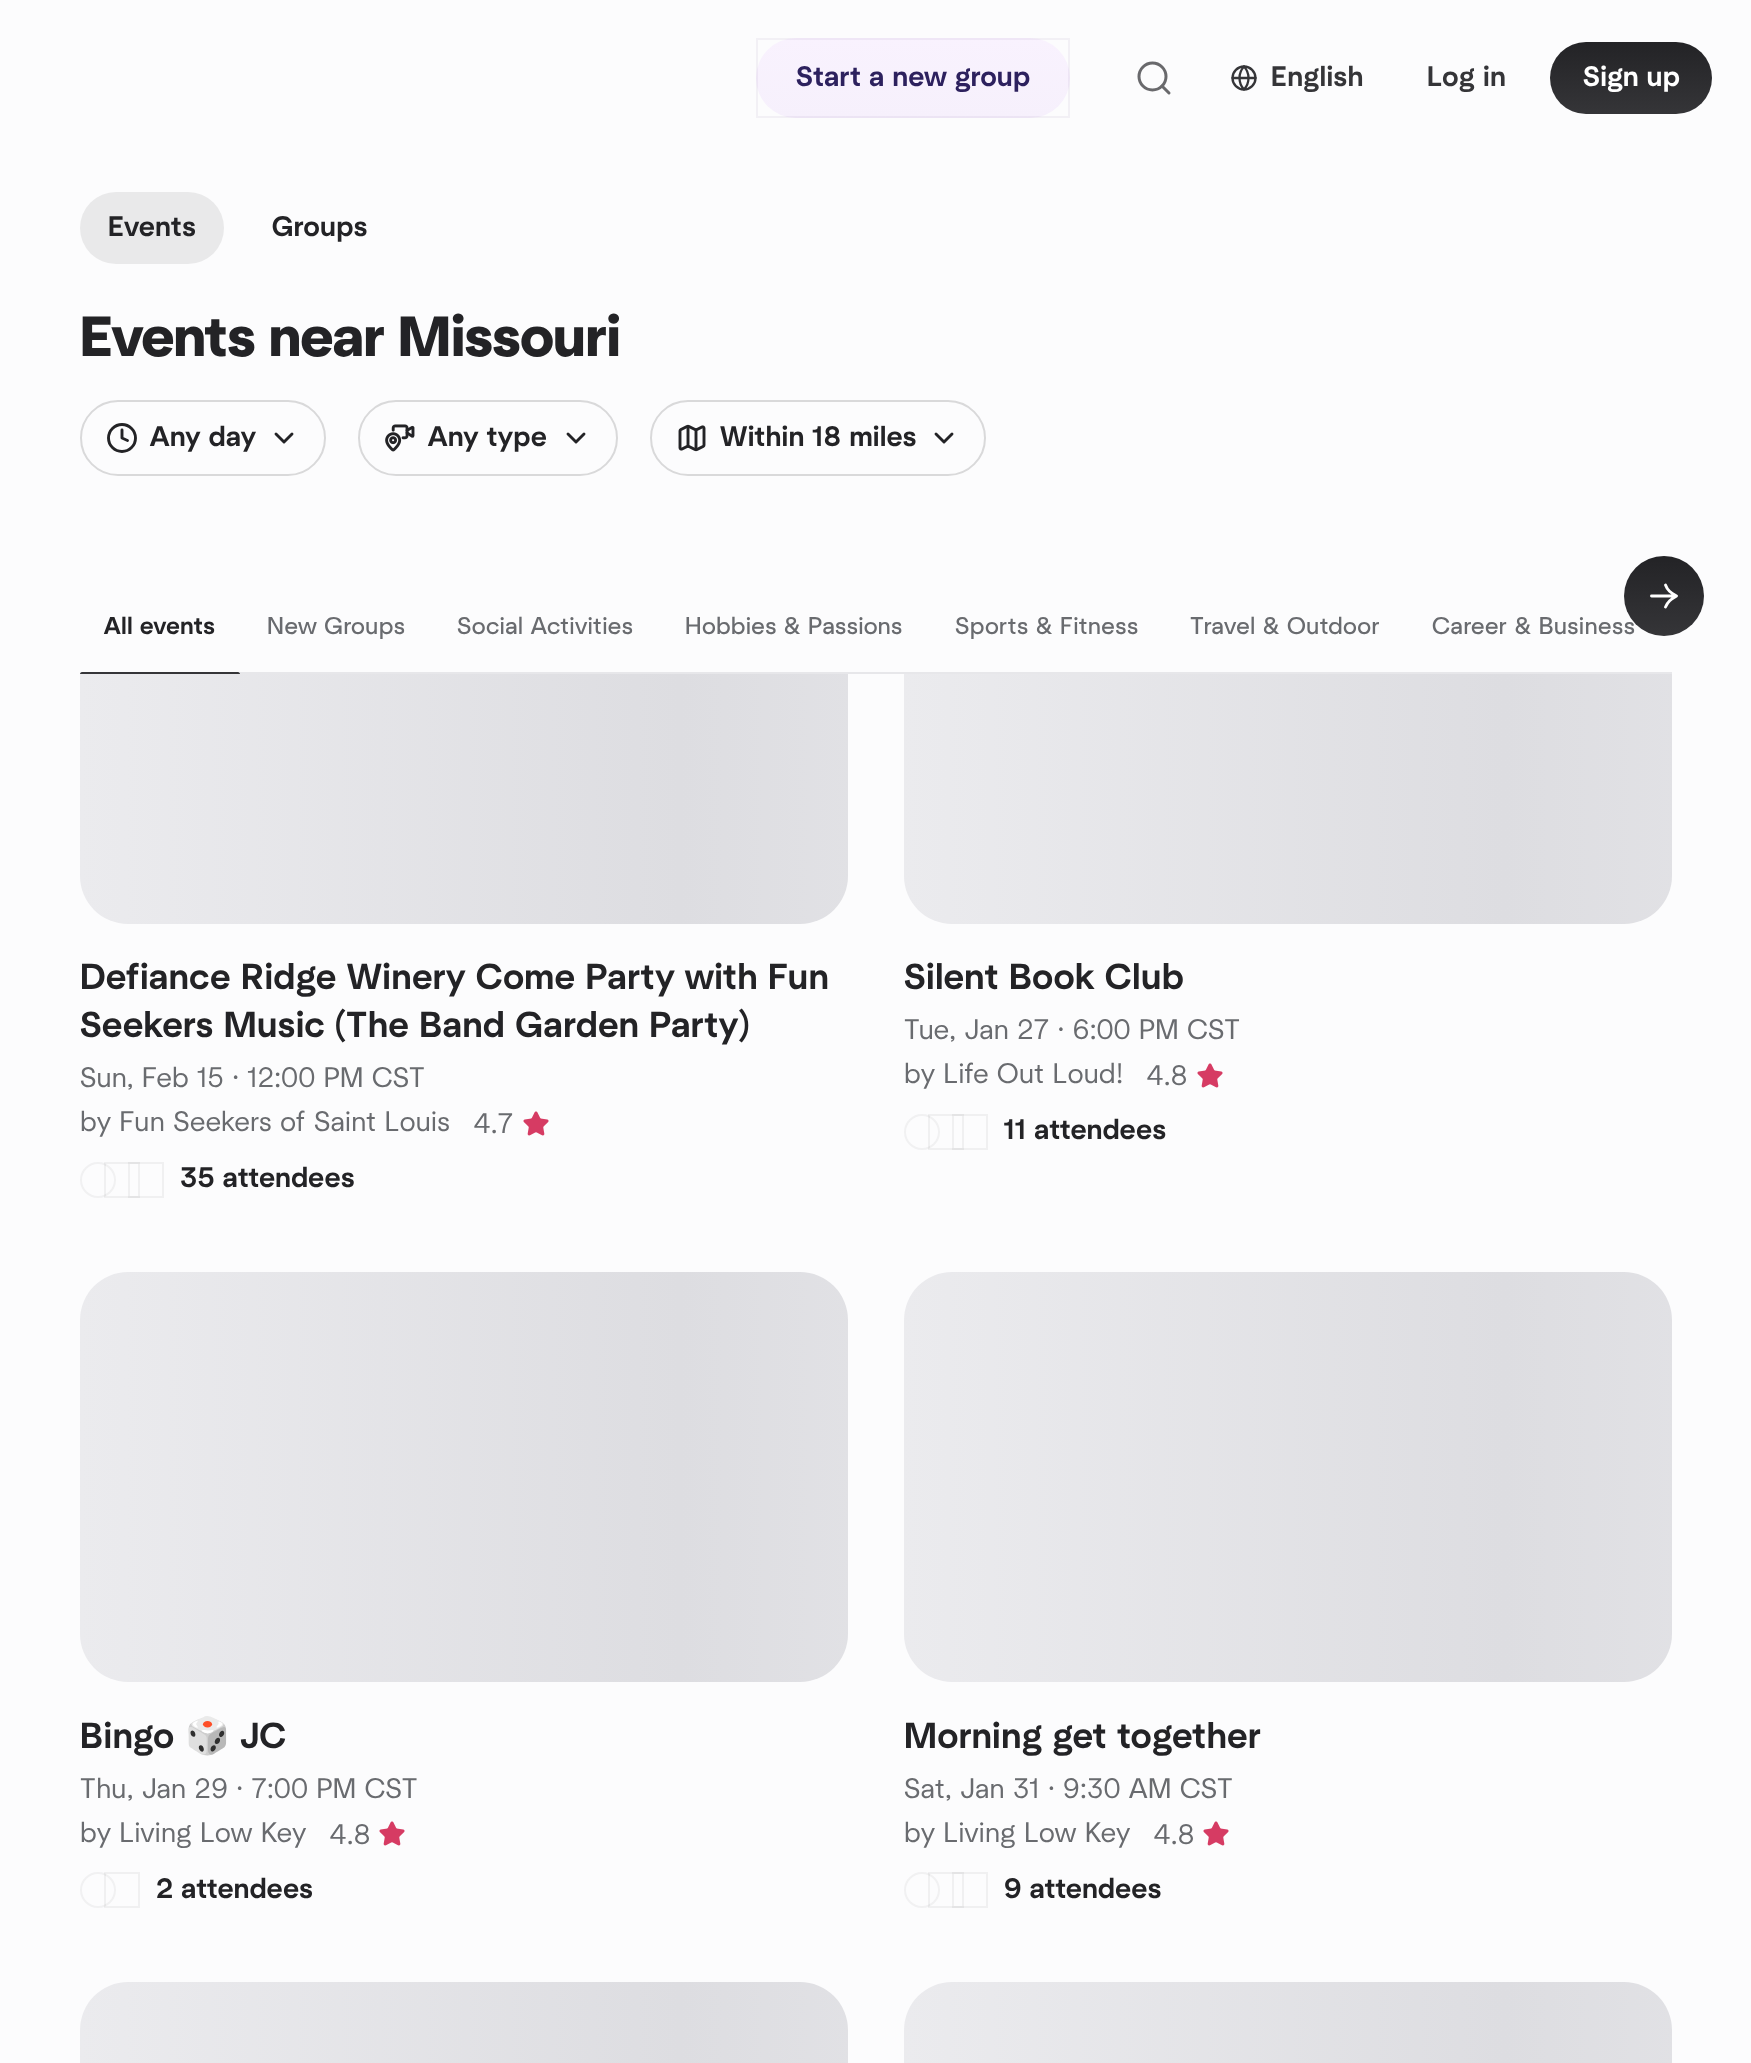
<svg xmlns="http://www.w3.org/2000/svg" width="1751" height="2063">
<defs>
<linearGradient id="g1" gradientUnits="userSpaceOnUse" x1="913" y1="38" x2="913" y2="118"><stop offset="0" stop-color="#f9f2fe"/><stop offset="1" stop-color="#f6f0fc"/></linearGradient>
<linearGradient id="g2" gradientUnits="userSpaceOnUse" x1="1631" y1="42" x2="1631" y2="114"><stop offset="0" stop-color="#232326"/><stop offset="1" stop-color="#353538"/></linearGradient>
<linearGradient id="g3" gradientUnits="userSpaceOnUse" x1="80" y1="718" x2="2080" y2="718"><stop offset="0" stop-color="#ebebee"/><stop offset="0.3" stop-color="#dddde1"/><stop offset="0.6" stop-color="#ebebee"/></linearGradient>
<linearGradient id="g4" gradientUnits="userSpaceOnUse" x1="904" y1="718" x2="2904" y2="718"><stop offset="0" stop-color="#ebebee"/><stop offset="0.3" stop-color="#dddde1"/><stop offset="0.6" stop-color="#ebebee"/></linearGradient>
<linearGradient id="g5" gradientUnits="userSpaceOnUse" x1="1664" y1="556" x2="1664" y2="636"><stop offset="0" stop-color="#232326"/><stop offset="1" stop-color="#353538"/></linearGradient>
<linearGradient id="g6" gradientUnits="userSpaceOnUse" x1="80" y1="1477" x2="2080" y2="1477"><stop offset="0" stop-color="#ebebee"/><stop offset="0.3" stop-color="#dddde1"/><stop offset="0.6" stop-color="#ebebee"/></linearGradient>
<linearGradient id="g7" gradientUnits="userSpaceOnUse" x1="904" y1="1477" x2="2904" y2="1477"><stop offset="0" stop-color="#ebebee"/><stop offset="0.3" stop-color="#dddde1"/><stop offset="0.6" stop-color="#ebebee"/></linearGradient>
<linearGradient id="g8" gradientUnits="userSpaceOnUse" x1="80" y1="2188" x2="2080" y2="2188"><stop offset="0" stop-color="#ebebee"/><stop offset="0.3" stop-color="#dddde1"/><stop offset="0.6" stop-color="#ebebee"/></linearGradient>
<linearGradient id="g9" gradientUnits="userSpaceOnUse" x1="904" y1="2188" x2="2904" y2="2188"><stop offset="0" stop-color="#ebebee"/><stop offset="0.3" stop-color="#dddde1"/><stop offset="0.6" stop-color="#ebebee"/></linearGradient>
</defs>
<rect width="100%" height="100%" fill="#fcfcfd"/>
<rect x="756" y="38" width="314" height="80" rx="40" fill="url(#g1)"/>
<rect x="757" y="39" width="312" height="78" fill="none" stroke="#3814590d" stroke-width="2"/>
<text x="796" y="86" style="font-family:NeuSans;font-size:28px;font-weight:500;letter-spacing:0.55px;fill:#2d215e">Start a new group</text>
<path d="M1169 93l-7-7" fill="none" stroke="#69696c" stroke-width="3" stroke-linecap="round" stroke-linejoin="round"/>
<circle cx="1152.5" cy="76.5" r="13.5" fill="none" stroke="#69696c" stroke-width="3"/>
<circle cx="1244" cy="78" r="11.5" fill="none" stroke="#353538" stroke-width="2.3"/>
<path d="M1244 66.5c-6 6.5-6 16.5 0 23c6-6.5 6-16.5 0-23m-11.5 11.5h23" fill="none" stroke="#353538" stroke-width="2.3" stroke-linecap="round" stroke-linejoin="round"/>
<text x="1271" y="86" style="font-family:NeuSans;font-size:28px;font-weight:500;letter-spacing:0.55px;fill:#353538">English</text>
<text x="1427" y="86" style="font-family:NeuSans;font-size:28px;font-weight:500;letter-spacing:0.55px;fill:#353538">Log in</text>
<rect x="1550" y="42" width="162" height="72" rx="36" fill="url(#g2)"/>
<text x="1583" y="86" style="font-family:NeuSans;font-size:28px;font-weight:500;letter-spacing:0.55px;fill:#fff">Sign up</text>
<rect x="80" y="512" width="768" height="412" rx="48" fill="url(#g3)"/>
<rect x="904" y="512" width="768" height="412" rx="48" fill="url(#g4)"/>
<rect x="80" y="512" width="1592" height="160" fill="#fcfcfd"/>
<rect x="80" y="192" width="144" height="72" rx="36" fill="#e9e9ea"/>
<text x="108" y="236" style="font-family:NeuSans;font-size:28px;font-weight:500;letter-spacing:0.55px;fill:#232326">Events</text>
<text x="272" y="236" style="font-family:NeuSans;font-size:28px;font-weight:500;letter-spacing:0.55px;fill:#232326">Groups</text>
<text x="80" y="356" style="font-family:NeuSans;font-size:56px;font-weight:bold;fill:#232326">Events near Missouri</text>
<rect x="81" y="401" width="244" height="74" rx="37" fill="none" stroke="#d9d9da" stroke-width="2"/>
<circle cx="122" cy="438" r="13.5" fill="none" stroke="#232326" stroke-width="2.9"/>
<path d="M122 430v8l5.5 2.5" fill="none" stroke="#232326" stroke-width="2.9" stroke-linecap="round" stroke-linejoin="round"/>
<text x="150" y="446" style="font-family:NeuSans;font-size:28px;font-weight:500;letter-spacing:0.55px;fill:#232326">Any day</text>
<path d="M276 434l8 8l8-8" fill="none" stroke="#232326" stroke-width="2.9" stroke-linecap="round" stroke-linejoin="round"/>
<rect x="359" y="401" width="258" height="74" rx="37" fill="none" stroke="#d9d9da" stroke-width="2"/>
<image x="385" y="424" width="30" height="28" href="media/1.png"/>
<text x="428" y="446" style="font-family:NeuSans;font-size:28px;font-weight:500;letter-spacing:0.55px;fill:#232326">Any type</text>
<path d="M568 434l8 8l8-8" fill="none" stroke="#232326" stroke-width="2.9" stroke-linecap="round" stroke-linejoin="round"/>
<rect x="651" y="401" width="334" height="74" rx="37" fill="none" stroke="#d9d9da" stroke-width="2"/>
<image x="678" y="424" width="28" height="28" href="media/2.png"/>
<text x="720" y="446" style="font-family:NeuSans;font-size:28px;font-weight:500;letter-spacing:0.55px;fill:#232326">Within 18 miles</text>
<path d="M936 434l8 8l8-8" fill="none" stroke="#232326" stroke-width="2.9" stroke-linecap="round" stroke-linejoin="round"/>
<rect x="80" y="672" width="1592" height="2" fill="#e7e7ea"/>
<text x="104" y="634" style="font-family:NeuSans;font-size:24px;font-weight:500;letter-spacing:0.5px;fill:#232326">All events</text>
<path d="M82 672h156c1 0 2 1 2 2h-160c0-1 1-2 2-2z" fill="#353538"/>
<text x="267" y="634" style="font-family:'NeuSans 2';font-size:24px;letter-spacing:0.5px;fill:#696b6f">New Groups</text>
<text x="457" y="634" style="font-family:'NeuSans 2';font-size:24px;letter-spacing:0.5px;fill:#696b6f">Social Activities</text>
<text x="685" y="634" style="font-family:'NeuSans 2';font-size:24px;letter-spacing:0.5px;fill:#696b6f">Hobbies &amp; Passions</text>
<text x="955" y="634" style="font-family:'NeuSans 2';font-size:24px;letter-spacing:0.5px;fill:#696b6f">Sports &amp; Fitness</text>
<text x="1190" y="634" style="font-family:'NeuSans 2';font-size:24px;letter-spacing:0.5px;fill:#696b6f">Travel &amp; Outdoor</text>
<text x="1432" y="634" style="font-family:'NeuSans 2';font-size:24px;letter-spacing:0.5px;fill:#696b6f">Career &amp; Business</text>
<circle cx="1664" cy="596" r="40" fill="url(#g5)"/>
<path d="M1665.5 585c2 5.5 5 7.5 11 11c-6 3.5-8.5 5.5-11 11m-14-11h24" fill="none" stroke="#fff" stroke-width="2.9" stroke-linecap="round" stroke-linejoin="round"/>
<text x="80" y="989" style="font-family:NeuSans;font-size:36px;font-weight:500;letter-spacing:0.7px;fill:#232326">Defiance Ridge Winery Come Party with Fun</text>
<text x="80" y="1037" style="font-family:NeuSans;font-size:36px;font-weight:500;letter-spacing:0.7px;fill:#232326">Seekers Music (The Band Garden Party)</text>
<text x="80" y="1087" style="font-family:NeuSans;font-size:28px;letter-spacing:0.55px;fill:#696b6f">Sun, Feb 15 · 12:00 PM CST</text>
<text x="80" y="1131" style="font-family:NeuSans;font-size:28px;letter-spacing:0.55px;fill:#696b6f">by Fun Seekers of Saint Louis</text>
<text x="473" y="1133" style="font-family:NeuSans;font-size:28px;letter-spacing:0.55px;fill:#696b6f">4.7</text>
<image x="523" y="1111" width="26" height="25" href="media/3.png"/>
<circle cx="98" cy="1180" r="17" fill="none" stroke="#f1f1f2" stroke-width="2"/>
<rect x="105" y="1163" width="34" height="34" fill="none" stroke="#1212150d" stroke-width="2"/>
<rect x="129" y="1163" width="34" height="34" fill="none" stroke="#1212150d" stroke-width="2"/>
<text x="180" y="1187" style="font-family:NeuSans;font-size:28px;font-weight:500;letter-spacing:0.55px;fill:#232326">35 attendees</text>
<text x="904" y="989" style="font-family:NeuSans;font-size:36px;font-weight:500;letter-spacing:0.7px;fill:#232326">Silent Book Club</text>
<text x="904" y="1039" style="font-family:NeuSans;font-size:28px;letter-spacing:0.55px;fill:#696b6f">Tue, Jan 27 · 6:00 PM CST</text>
<text x="904" y="1083" style="font-family:NeuSans;font-size:28px;letter-spacing:0.55px;fill:#696b6f">by Life Out Loud!</text>
<text x="1146" y="1085" style="font-family:NeuSans;font-size:28px;letter-spacing:0.55px;fill:#696b6f">4.8</text>
<image x="1197" y="1063" width="26" height="25" href="media/3.png"/>
<circle cx="922" cy="1132" r="17" fill="none" stroke="#f1f1f2" stroke-width="2"/>
<rect x="929" y="1115" width="34" height="34" fill="none" stroke="#1212150d" stroke-width="2"/>
<rect x="953" y="1115" width="34" height="34" fill="none" stroke="#1212150d" stroke-width="2"/>
<text x="1004" y="1139" style="font-family:NeuSans;font-size:28px;font-weight:500;letter-spacing:0.55px;fill:#232326">11 attendees</text>
<rect x="80" y="1272" width="768" height="410" rx="48" fill="url(#g6)"/>
<text x="80" y="1748" style="font-family:NeuSans;font-size:36px;font-weight:500;letter-spacing:0.7px;fill:#232326">Bingo</text>
<text x="185" y="1748" style="font-family:Noto Color Emoji;font-size:36px;font-weight:bold;letter-spacing:0.7px;fill:#232326">🎲</text>
<text x="240" y="1748" style="font-family:NeuSans;font-size:36px;font-weight:500;letter-spacing:0.7px;fill:#232326">JC</text>
<text x="80" y="1798" style="font-family:NeuSans;font-size:28px;letter-spacing:0.55px;fill:#696b6f">Thu, Jan 29 · 7:00 PM CST</text>
<text x="80" y="1842" style="font-family:NeuSans;font-size:28px;letter-spacing:0.55px;fill:#696b6f">by Living Low Key</text>
<text x="329" y="1844" style="font-family:NeuSans;font-size:28px;letter-spacing:0.55px;fill:#696b6f">4.8</text>
<image x="379" y="1821" width="26" height="25" href="media/3.png"/>
<circle cx="98" cy="1890" r="17" fill="none" stroke="#f1f1f2" stroke-width="2"/>
<rect x="105" y="1873" width="34" height="34" fill="none" stroke="#1212150d" stroke-width="2"/>
<text x="156" y="1898" style="font-family:NeuSans;font-size:28px;font-weight:500;letter-spacing:0.55px;fill:#232326">2 attendees</text>
<rect x="904" y="1272" width="768" height="410" rx="48" fill="url(#g7)"/>
<text x="904" y="1748" style="font-family:NeuSans;font-size:36px;font-weight:500;letter-spacing:0.7px;fill:#232326">Morning get together</text>
<text x="904" y="1798" style="font-family:NeuSans;font-size:28px;letter-spacing:0.55px;fill:#696b6f">Sat, Jan 31 · 9:30 AM CST</text>
<text x="904" y="1842" style="font-family:NeuSans;font-size:28px;letter-spacing:0.55px;fill:#696b6f">by Living Low Key</text>
<text x="1153" y="1844" style="font-family:NeuSans;font-size:28px;letter-spacing:0.55px;fill:#696b6f">4.8</text>
<image x="1203" y="1821" width="26" height="25" href="media/3.png"/>
<circle cx="922" cy="1890" r="17" fill="none" stroke="#f1f1f2" stroke-width="2"/>
<rect x="929" y="1873" width="34" height="34" fill="none" stroke="#1212150d" stroke-width="2"/>
<rect x="953" y="1873" width="34" height="34" fill="none" stroke="#1212150d" stroke-width="2"/>
<text x="1004" y="1898" style="font-family:NeuSans;font-size:28px;font-weight:500;letter-spacing:0.55px;fill:#232326">9 attendees</text>
<rect x="80" y="1982" width="768" height="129" rx="48" fill="url(#g8)"/>
<rect x="904" y="1982" width="768" height="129" rx="48" fill="url(#g9)"/>
</svg>
